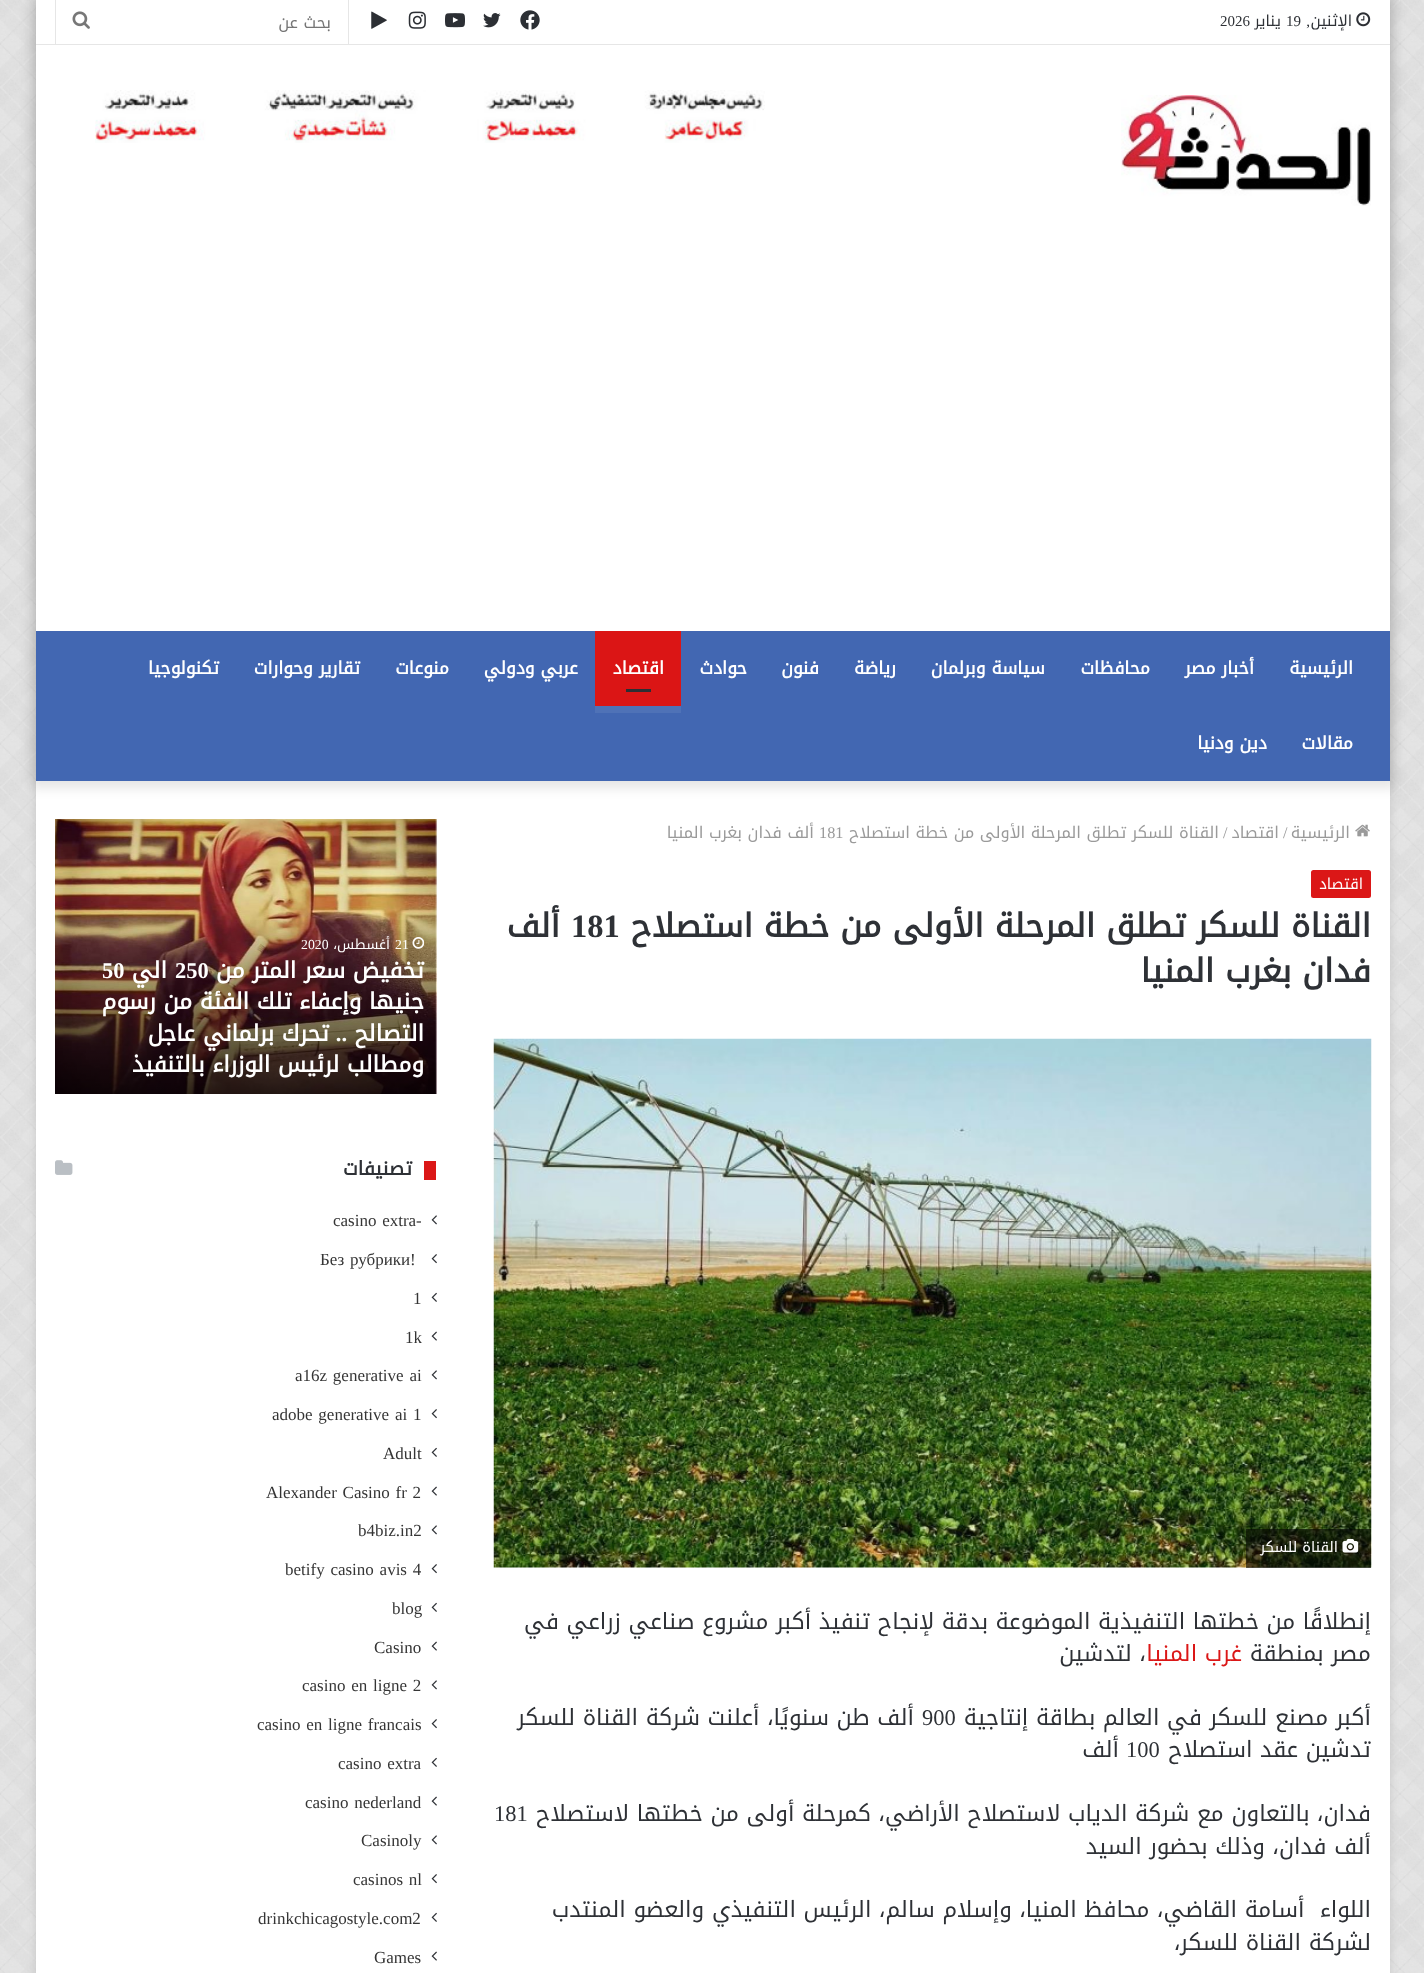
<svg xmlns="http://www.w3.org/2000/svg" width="1424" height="1973">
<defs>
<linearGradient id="g1" gradientUnits="userSpaceOnUse" x1="245" y1="915" x2="245" y2="1094"><stop offset="0" stop-color="#000" stop-opacity="0"/><stop offset="1" stop-color="#000" stop-opacity="0.74"/></linearGradient>
</defs>
<rect width="100%" height="100%" fill="#fff"/>
<image x="0" y="0" width="1424" height="1973" href="media/1.png"/>
<rect x="36" y="1" width="1354" height="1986" fill="#ababab80" filter="blur(4.5px)"/>
<rect x="36" y="781" width="1354" height="1192" fill="#fff"/>
<rect x="30" y="-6" width="1366" height="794" fill="#0000001a" filter="blur(6px)"/>
<rect x="36" width="1354" height="631" fill="#fff"/>
<rect x="36" y="44" width="1354" height="1" fill="#e6e6e6"/>
<image x="1356" y="12" width="15" height="15" href="media/2.png"/>
<text x="1352" y="26" style="font-family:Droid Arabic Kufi;font-size:15px;direction:rtl;fill:#2e3136">الإثنين</text>
<text x="1310" y="26" style="font-family:Liberation Serif;font-size:15px;direction:rtl;fill:#2e3136">,</text>
<text x="1286" y="26" style="font-family:Liberation Serif;font-size:15px;fill:#2e3136">19</text>
<text x="1281" y="26" style="font-family:Droid Arabic Kufi;font-size:15px;direction:rtl;fill:#2e3136">يناير</text>
<text x="1220" y="26" style="font-family:Liberation Serif;font-size:15px;fill:#2e3136">2026</text>
<image x="520" y="10" width="20" height="20" href="media/3.png"/>
<image x="483" y="13" width="18" height="15" href="media/4.png"/>
<image x="445" y="13" width="20" height="15" href="media/5.png"/>
<image x="408" y="11" width="18" height="18" href="media/6.png"/>
<image x="371" y="11" width="16" height="18" href="media/7.png"/>
<rect x="348" width="1" height="44" fill="#e6e6e6"/>
<rect x="55" width="1" height="44" fill="#e6e6e6"/>
<text x="331" y="28" style="font-family:Droid Arabic Kufi;font-size:16.25px;direction:rtl;fill:#757575">بحث عن</text>
<image x="72" y="11" width="18" height="18" href="media/8.png"/>
<image x="1121" y="95" width="250" height="111" href="media/9.png"/>
<image x="95" y="90" width="670" height="53" href="media/10.png"/>
<rect x="36" y="631" width="1354" height="150" fill="#4267b2"/>
<text x="1353" y="674" style="font-family:Droid Arabic Kufi;font-size:17.5px;font-weight:bold;direction:rtl;fill:#fff">الرئيسية</text>
<text x="1254" y="674" style="font-family:Droid Arabic Kufi;font-size:17.5px;font-weight:bold;direction:rtl;fill:#fff">أخبار مصر</text>
<text x="1150" y="674" style="font-family:Droid Arabic Kufi;font-size:17.5px;font-weight:bold;direction:rtl;fill:#fff">محافظات</text>
<text x="1045" y="674" style="font-family:Droid Arabic Kufi;font-size:17.5px;font-weight:bold;direction:rtl;fill:#fff">سياسة وبرلمان</text>
<text x="896" y="674" style="font-family:Droid Arabic Kufi;font-size:17.5px;font-weight:bold;direction:rtl;fill:#fff">رياضة</text>
<text x="819" y="674" style="font-family:Droid Arabic Kufi;font-size:17.5px;font-weight:bold;direction:rtl;fill:#fff">فنون</text>
<text x="747" y="674" style="font-family:Droid Arabic Kufi;font-size:17.5px;font-weight:bold;direction:rtl;fill:#fff">حوادث</text>
<rect x="595" y="706" width="86" height="7" fill="#4f72b7"/>
<rect x="595" y="631" width="86" height="75" fill="#db1515"/>
<text x="664" y="674" style="font-family:Droid Arabic Kufi;font-size:17.5px;font-weight:bold;direction:rtl;fill:#fff">اقتصاد</text>
<rect x="626" y="689" width="25" height="3" fill="#2c2f34"/>
<text x="578" y="674" style="font-family:Droid Arabic Kufi;font-size:17.5px;font-weight:bold;direction:rtl;fill:#fff">عربي ودولي</text>
<text x="449" y="674" style="font-family:Droid Arabic Kufi;font-size:17.5px;font-weight:bold;direction:rtl;fill:#fff">منوعات</text>
<text x="360" y="674" style="font-family:Droid Arabic Kufi;font-size:17.5px;font-weight:bold;direction:rtl;fill:#fff">تقارير وحوارات</text>
<text x="219" y="674" style="font-family:Droid Arabic Kufi;font-size:17.5px;font-weight:bold;direction:rtl;fill:#fff">تكنولوجيا</text>
<text x="1353" y="749" style="font-family:Droid Arabic Kufi;font-size:17.5px;font-weight:bold;direction:rtl;fill:#fff">مقالات</text>
<text x="1267" y="749" style="font-family:Droid Arabic Kufi;font-size:17.5px;font-weight:bold;direction:rtl;fill:#fff">دين ودنيا</text>
<image x="1355" y="824" width="15" height="13" href="media/11.png"/>
<text x="1350" y="838" style="font-family:Droid Arabic Kufi;font-size:16.25px;direction:rtl;fill:#9a9a9a">الرئيسية</text>
<text x="1283" y="838" style="font-family:Liberation Serif;font-size:16.25px;fill:#9a9a9a">/</text>
<text x="1279" y="838" style="font-family:Droid Arabic Kufi;font-size:16.25px;direction:rtl;fill:#9a9a9a">اقتصاد</text>
<text x="1223" y="838" style="font-family:Liberation Serif;font-size:16.25px;fill:#9a9a9a">/</text>
<text x="1219" y="838" style="font-family:Droid Arabic Kufi;font-size:16.25px;direction:rtl;fill:#9a9a9a">القناة للسكر تطلق المرحلة الأولى من خطة استصلاح</text>
<text x="819" y="838" style="font-family:Liberation Serif;font-size:16.25px;fill:#9a9a9a">181</text>
<text x="814" y="838" style="font-family:Droid Arabic Kufi;font-size:16.25px;direction:rtl;fill:#9a9a9a">ألف فدان بغرب المنيا</text>
<rect x="1311" y="870" width="60" height="28" rx="2.5" fill="#db1717"/>
<text x="1363" y="889" style="font-family:Droid Arabic Kufi;font-size:15px;direction:rtl;fill:#fff">اقتصاد</text>
<text x="1371" y="937" style="font-family:Droid Arabic Kufi;font-size:32.5px;font-weight:bold;direction:rtl;fill:#2e3136">القناة للسكر تطلق المرحلة الأولى من خطة استصلاح</text>
<text x="571" y="937" style="font-family:Liberation Serif;font-size:32.5px;font-weight:bold;fill:#2e3136">181</text>
<text x="560" y="937" style="font-family:Droid Arabic Kufi;font-size:32.5px;font-weight:bold;direction:rtl;fill:#2e3136">ألف</text>
<text x="1371" y="982" style="font-family:Droid Arabic Kufi;font-size:32.5px;font-weight:bold;direction:rtl;fill:#2e3136">فدان بغرب المنيا</text>
<image x="493" y="1038" width="879" height="530" href="media/12.png"/>
<rect x="1246" y="1529" width="125" height="39" fill="#03030399"/>
<image x="1342" y="1538" width="17" height="15" href="media/13.png"/>
<text x="1338" y="1552" style="font-family:Droid Arabic Kufi;font-size:14.5px;direction:rtl;fill:#fff">القناة للسكر</text>
<text x="1371" y="1629" style="font-family:Droid Arabic Kufi;font-size:22.5px;direction:rtl;fill:#2e3136">إنطلاقًا من خطتها التنفيذية الموضوعة بدقة لإنجاح تنفيذ أكبر مشروع صناعي زراعي في</text>
<text x="1371" y="1661" style="font-family:Droid Arabic Kufi;font-size:22.5px;direction:rtl;fill:#2e3136">مصر بمنطقة</text>
<text x="1242" y="1661" style="font-family:Droid Arabic Kufi;font-size:22.5px;direction:rtl;fill:#db1717">غرب المنيا</text>
<text x="1146" y="1661" style="font-family:Droid Arabic Kufi;font-size:22.5px;direction:rtl;fill:#2e3136">، لتدشين</text>
<text x="1371" y="1725" style="font-family:Droid Arabic Kufi;font-size:22.5px;direction:rtl;fill:#2e3136">أكبر مصنع للسكر في العالم بطاقة إنتاجية</text>
<text x="922" y="1725" style="font-family:Liberation Serif;font-size:22.5px;fill:#2e3136">900</text>
<text x="914" y="1725" style="font-family:Droid Arabic Kufi;font-size:22.5px;direction:rtl;fill:#2e3136">ألف طن سنويًا، أعلنت شركة القناة للسكر</text>
<text x="1371" y="1757" style="font-family:Droid Arabic Kufi;font-size:22.5px;direction:rtl;fill:#2e3136">تدشين عقد استصلاح</text>
<text x="1126" y="1757" style="font-family:Liberation Serif;font-size:22.5px;fill:#2e3136">100</text>
<text x="1119" y="1757" style="font-family:Droid Arabic Kufi;font-size:22.5px;direction:rtl;fill:#2e3136">ألف</text>
<text x="1371" y="1821" style="font-family:Droid Arabic Kufi;font-size:22.5px;direction:rtl;fill:#2e3136">فدان، بالتعاون مع شركة الدياب لاستصلاح الأراضي، كمرحلة أولى من خطتها لاستصلاح</text>
<text x="494" y="1821" style="font-family:Liberation Serif;font-size:22.5px;fill:#2e3136">181</text>
<text x="1371" y="1854" style="font-family:Droid Arabic Kufi;font-size:22.5px;direction:rtl;fill:#2e3136">ألف فدان، وذلك بحضور السيد</text>
<text x="1371" y="1917" style="font-family:Droid Arabic Kufi;font-size:22.5px;direction:rtl;fill:#2e3136" xml:space="preserve">اللواء  أسامة القاضي، محافظ المنيا، وإسلام سالم، الرئيس التنفيذي والعضو المنتدب</text>
<text x="1371" y="1950" style="font-family:Droid Arabic Kufi;font-size:22.5px;direction:rtl;fill:#2e3136">لشركة القناة للسكر،</text>
<image x="55" y="819" width="382" height="275" href="media/14.png"/>
<rect x="55" y="920" width="381" height="174" fill="url(#g1)"/>
<image x="412" y="937" width="12" height="12" href="media/15.png"/>
<text x="395" y="949" style="font-family:Liberation Serif;font-size:13.75px;fill:#fff">21</text>
<text x="390" y="949" style="font-family:Droid Arabic Kufi;font-size:13.75px;direction:rtl;fill:#fff">أغسطس،</text>
<text x="301" y="949" style="font-family:Liberation Serif;font-size:13.75px;fill:#fff">2020</text>
<text x="424" y="978" style="font-family:Droid Arabic Kufi;font-size:22.5px;font-weight:bold;direction:rtl;fill:#fff">تخفيض سعر المتر من</text>
<text x="175" y="978" style="font-family:Liberation Serif;font-size:22.5px;font-weight:bold;fill:#fff">250</text>
<text x="167" y="978" style="font-family:Droid Arabic Kufi;font-size:22.5px;font-weight:bold;direction:rtl;fill:#fff">الي</text>
<text x="102" y="978" style="font-family:Liberation Serif;font-size:22.5px;font-weight:bold;fill:#fff">50</text>
<text x="424" y="1009" style="font-family:Droid Arabic Kufi;font-size:22.5px;font-weight:bold;direction:rtl;fill:#fff">جنيها وإعفاء تلك الفئة من رسوم</text>
<text x="424" y="1041" style="font-family:Droid Arabic Kufi;font-size:22.5px;font-weight:bold;direction:rtl;fill:#fff">التصالح</text>
<text x="347" y="1041" style="font-family:Liberation Serif;font-size:22.5px;font-weight:bold;direction:rtl;fill:#fff">..</text>
<text x="329" y="1041" style="font-family:Droid Arabic Kufi;font-size:22.5px;font-weight:bold;direction:rtl;fill:#fff">تحرك برلماني</text>
<text x="195" y="1041" style="font-family:Droid Arabic Kufi;font-size:22.5px;font-weight:bold;direction:rtl;fill:#fff">عاجل</text>
<text x="424" y="1072" style="font-family:Droid Arabic Kufi;font-size:22.5px;font-weight:bold;direction:rtl;fill:#fff">ومطالب لرئيس الوزراء بالتنفيذ</text>
<rect x="424" y="1161" width="12" height="19" fill="#db1717"/>
<text x="412" y="1175" style="font-family:Droid Arabic Kufi;font-size:19px;font-weight:bold;direction:rtl;fill:#2e3136">تصنيفات</text>
<image x="55" y="1160" width="18" height="15" href="media/16.png"/>
<image x="431" y="1215" width="6" height="10" href="media/17.png"/>
<text x="416" y="1226" style="font-family:Liberation Serif;font-size:17px;fill:#353535">-</text>
<text x="333" y="1226" word-spacing="1.5" style="font-family:Liberation Serif;font-size:17px;fill:#353535">casino extra</text>
<image x="431" y="1254" width="6" height="10" href="media/18.png"/>
<text x="410" y="1265" style="font-family:Liberation Serif;font-size:17px;fill:#353535">!</text>
<text x="320" y="1265" word-spacing="1.5" style="font-family:Liberation Serif;font-size:17px;fill:#353535">Без рубрики</text>
<image x="431" y="1292" width="6" height="10" href="media/19.png"/>
<text x="413" y="1304" style="font-family:Liberation Serif;font-size:17px;fill:#353535">1</text>
<image x="431" y="1331" width="6" height="10" href="media/20.png"/>
<text x="405" y="1343" style="font-family:Liberation Serif;font-size:17px;fill:#353535">1k</text>
<image x="431" y="1370" width="6" height="10" href="media/17.png"/>
<text x="295" y="1381" word-spacing="1.5" style="font-family:Liberation Serif;font-size:17px;fill:#353535">a16z generative ai</text>
<image x="431" y="1409" width="6" height="10" href="media/18.png"/>
<text x="272" y="1420" word-spacing="1.5" style="font-family:Liberation Serif;font-size:17px;fill:#353535">adobe generative ai 1</text>
<image x="431" y="1447" width="6" height="10" href="media/19.png"/>
<text x="383" y="1459" style="font-family:Liberation Serif;font-size:17px;fill:#353535">Adult</text>
<image x="431" y="1486" width="6" height="10" href="media/20.png"/>
<text x="266" y="1498" word-spacing="1.5" style="font-family:Liberation Serif;font-size:17px;fill:#353535">Alexander Casino fr 2</text>
<image x="431" y="1525" width="6" height="10" href="media/17.png"/>
<text x="358" y="1536" style="font-family:Liberation Serif;font-size:17px;fill:#353535">b4biz.in2</text>
<image x="431" y="1564" width="6" height="10" href="media/18.png"/>
<text x="285" y="1575" word-spacing="1.5" style="font-family:Liberation Serif;font-size:17px;fill:#353535">betify casino avis 4</text>
<image x="431" y="1602" width="6" height="10" href="media/19.png"/>
<text x="392" y="1614" style="font-family:Liberation Serif;font-size:17px;fill:#353535">blog</text>
<image x="431" y="1641" width="6" height="10" href="media/20.png"/>
<text x="374" y="1653" style="font-family:Liberation Serif;font-size:17px;fill:#353535">Casino</text>
<image x="431" y="1680" width="6" height="10" href="media/17.png"/>
<text x="302" y="1691" word-spacing="1.5" style="font-family:Liberation Serif;font-size:17px;fill:#353535">casino en ligne 2</text>
<image x="431" y="1719" width="6" height="10" href="media/18.png"/>
<text x="257" y="1730" word-spacing="1.5" style="font-family:Liberation Serif;font-size:17px;fill:#353535">casino en ligne francais</text>
<image x="431" y="1757" width="6" height="10" href="media/19.png"/>
<text x="338" y="1769" word-spacing="1.5" style="font-family:Liberation Serif;font-size:17px;fill:#353535">casino extra</text>
<image x="431" y="1796" width="6" height="10" href="media/20.png"/>
<text x="305" y="1808" word-spacing="1.5" style="font-family:Liberation Serif;font-size:17px;fill:#353535">casino nederland</text>
<image x="431" y="1835" width="6" height="10" href="media/17.png"/>
<text x="361" y="1846" style="font-family:Liberation Serif;font-size:17px;fill:#353535">Casinoly</text>
<image x="431" y="1874" width="6" height="10" href="media/18.png"/>
<text x="353" y="1885" word-spacing="1.5" style="font-family:Liberation Serif;font-size:17px;fill:#353535">casinos nl</text>
<image x="431" y="1912" width="6" height="10" href="media/19.png"/>
<text x="258" y="1924" style="font-family:Liberation Serif;font-size:17px;fill:#353535">drinkchicagostyle.com2</text>
<image x="431" y="1951" width="6" height="10" href="media/20.png"/>
<text x="374" y="1963" style="font-family:Liberation Serif;font-size:17px;fill:#353535">Games</text>
</svg>
